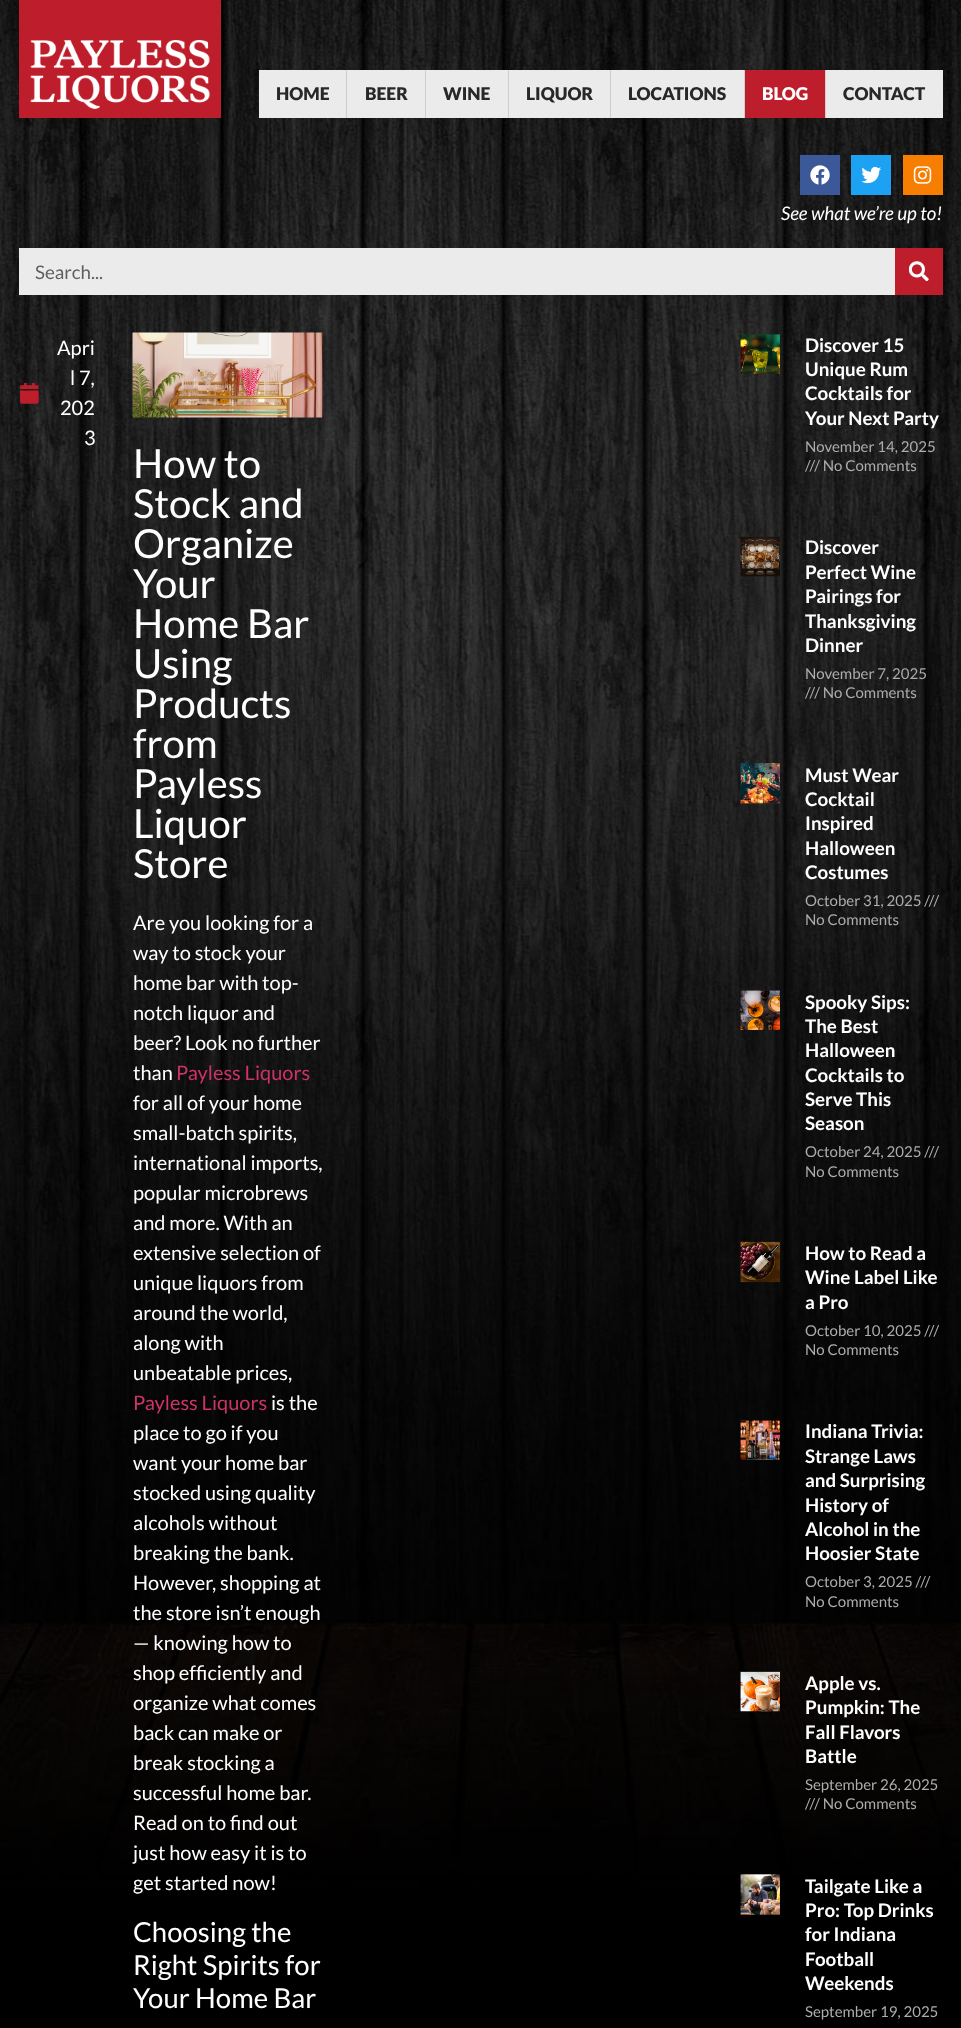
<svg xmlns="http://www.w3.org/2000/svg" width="961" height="2028">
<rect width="100%" height="100%" fill="#fff"/>
<image x="0" y="0" width="961" height="2028" href="media/1.png"/>
<rect x="19" width="202" height="118" fill="#be1e2c"/>
<image x="30" y="40" width="180" height="69" href="media/2.png"/>
<rect x="259" y="70" width="684" height="48" fill="#ebebeb"/>
<text x="276" y="100" style="font-family:Lato;font-size:17.5px;font-weight:900;fill:#282828">HOME</text>
<rect x="346" y="70" width="1" height="48" fill="#cecece"/>
<text x="365" y="100" style="font-family:Lato;font-size:17.5px;font-weight:900;fill:#282828">BEER</text>
<rect x="425" y="70" width="1" height="48" fill="#cecece"/>
<text x="443" y="100" style="font-family:Lato;font-size:17.5px;font-weight:900;fill:#282828">WINE</text>
<rect x="508" y="70" width="1" height="48" fill="#cecece"/>
<text x="526" y="100" style="font-family:Lato;font-size:17.5px;font-weight:900;fill:#282828">LIQUOR</text>
<rect x="610" y="70" width="1" height="48" fill="#cecece"/>
<text x="628" y="100" style="font-family:Lato;font-size:17.5px;font-weight:900;fill:#282828">LOCATIONS</text>
<rect x="744" y="70" width="1" height="48" fill="#cecece"/>
<rect x="745" y="70" width="80" height="48" fill="#be1e2c"/>
<text x="762" y="100" style="font-family:Lato;font-size:17.5px;font-weight:900;fill:#fff">BLOG</text>
<rect x="825" y="70" width="1" height="48" fill="#cecece"/>
<text x="843" y="100" style="font-family:Lato;font-size:17.5px;font-weight:900;fill:#282828">CONTACT</text>
<rect x="800" y="155" width="40" height="40" fill="#3b5998"/>
<image x="810" y="165" width="20" height="20" href="media/3.png"/>
<rect x="851" y="155" width="40" height="40" fill="#1da1f2"/>
<image x="861" y="166" width="20" height="18" href="media/4.png"/>
<rect x="903" y="155" width="40" height="40" fill="#f87e01"/>
<image x="913" y="166" width="19" height="18" href="media/5.png"/>
<text x="781" y="220" style="font-family:Lato;font-size:18.75px;font-style:italic;fill:#fff">See what we’re up to!</text>
<rect x="19" y="248" width="876" height="47" fill="#ebebeb"/>
<text x="35" y="279" style="font-family:Lato;font-size:18.75px;fill:#5e5e5e">Search...</text>
<rect x="895" y="248" width="48" height="47" fill="#be1e2c"/>
<image x="909" y="261" width="20" height="20" href="media/6.png"/>
<image x="20" y="383" width="19" height="21" href="media/7.png"/>
<text x="57" y="355" style="font-family:Lato;font-size:20px;fill:#fff">Apri</text>
<text x="70" y="385" style="font-family:Lato;font-size:20px;fill:#fff">l 7,</text>
<text x="60" y="415" style="font-family:Lato;font-size:20px;fill:#fff">202</text>
<text x="84" y="445" style="font-family:Lato;font-size:20px;fill:#fff">3</text>
<image x="132" y="332" width="191" height="86" href="media/8.png"/>
<text x="133" y="478" style="font-family:Lato;font-size:40px;fill:#fff">How to</text>
<text x="133" y="518" style="font-family:Lato;font-size:40px;fill:#fff">Stock and</text>
<text x="133" y="558" style="font-family:Lato;font-size:40px;fill:#fff">Organize</text>
<text x="133" y="598" style="font-family:Lato;font-size:40px;fill:#fff">Your</text>
<text x="133" y="638" style="font-family:Lato;font-size:40px;fill:#fff">Home Bar</text>
<text x="133" y="678" style="font-family:Lato;font-size:40px;fill:#fff">Using</text>
<text x="133" y="718" style="font-family:Lato;font-size:40px;fill:#fff">Products</text>
<text x="133" y="758" style="font-family:Lato;font-size:40px;fill:#fff">from</text>
<text x="133" y="798" style="font-family:Lato;font-size:40px;fill:#fff">Payless</text>
<text x="133" y="838" style="font-family:Lato;font-size:40px;fill:#fff">Liquor</text>
<text x="133" y="878" style="font-family:Lato;font-size:40px;fill:#fff">Store</text>
<text x="133" y="930" style="font-family:Lato;font-size:20px;fill:#fff">Are you looking for a</text>
<text x="133" y="960" style="font-family:Lato;font-size:20px;fill:#fff">way to stock your</text>
<text x="133" y="990" style="font-family:Lato;font-size:20px;fill:#fff">home bar with top-</text>
<text x="133" y="1020" style="font-family:Lato;font-size:20px;fill:#fff">notch liquor and</text>
<text x="133" y="1050" style="font-family:Lato;font-size:20px;fill:#fff">beer? Look no further</text>
<text x="133" y="1080" style="font-family:Lato;font-size:20px;fill:#fff">than</text>
<text x="176" y="1080" style="font-family:Lato;font-size:20px;fill:#c36">Payless Liquors</text>
<text x="133" y="1110" style="font-family:Lato;font-size:20px;fill:#fff">for all of your home</text>
<text x="133" y="1140" style="font-family:Lato;font-size:20px;fill:#fff">small-batch spirits,</text>
<text x="133" y="1170" style="font-family:Lato;font-size:20px;fill:#fff">international imports,</text>
<text x="133" y="1200" style="font-family:Lato;font-size:20px;fill:#fff">popular microbrews</text>
<text x="133" y="1230" style="font-family:Lato;font-size:20px;fill:#fff">and more. With an</text>
<text x="133" y="1260" style="font-family:Lato;font-size:20px;fill:#fff">extensive selection of</text>
<text x="133" y="1290" style="font-family:Lato;font-size:20px;fill:#fff">unique liquors from</text>
<text x="133" y="1320" style="font-family:Lato;font-size:20px;fill:#fff">around the world,</text>
<text x="133" y="1350" style="font-family:Lato;font-size:20px;fill:#fff">along with</text>
<text x="133" y="1380" style="font-family:Lato;font-size:20px;fill:#fff">unbeatable prices,</text>
<text x="133" y="1410" style="font-family:Lato;font-size:20px;fill:#c36">Payless Liquors</text>
<text x="271" y="1410" style="font-family:Lato;font-size:20px;fill:#fff">is the</text>
<text x="133" y="1440" style="font-family:Lato;font-size:20px;fill:#fff">place to go if you</text>
<text x="133" y="1470" style="font-family:Lato;font-size:20px;fill:#fff">want your home bar</text>
<text x="133" y="1500" style="font-family:Lato;font-size:20px;fill:#fff">stocked using quality</text>
<text x="133" y="1530" style="font-family:Lato;font-size:20px;fill:#fff">alcohols without</text>
<text x="133" y="1560" style="font-family:Lato;font-size:20px;fill:#fff">breaking the bank.</text>
<text x="133" y="1590" style="font-family:Lato;font-size:20px;fill:#fff">However, shopping at</text>
<text x="133" y="1620" style="font-family:Lato;font-size:20px;fill:#fff">the store isn’t enough</text>
<text x="133" y="1650" style="font-family:Lato;font-size:20px;fill:#fff">— knowing how to</text>
<text x="133" y="1680" style="font-family:Lato;font-size:20px;fill:#fff">shop efficiently and</text>
<text x="133" y="1710" style="font-family:Lato;font-size:20px;fill:#fff">organize what comes</text>
<text x="133" y="1740" style="font-family:Lato;font-size:20px;fill:#fff">back can make or</text>
<text x="133" y="1770" style="font-family:Lato;font-size:20px;fill:#fff">break stocking a</text>
<text x="133" y="1800" style="font-family:Lato;font-size:20px;fill:#fff">successful home bar.</text>
<text x="133" y="1830" style="font-family:Lato;font-size:20px;fill:#fff">Read on to find out</text>
<text x="133" y="1860" style="font-family:Lato;font-size:20px;fill:#fff">just how easy it is to</text>
<text x="133" y="1890" style="font-family:Lato;font-size:20px;fill:#fff">get started now!</text>
<text x="133" y="1942" style="font-family:Lato;font-size:27.5px;fill:#fff">Choosing the</text>
<text x="133" y="1975" style="font-family:Lato;font-size:27.5px;fill:#fff">Right Spirits for</text>
<text x="133" y="2008" style="font-family:Lato;font-size:27.5px;fill:#fff">Your Home Bar</text>
<image x="740" y="334" width="40" height="40" href="media/9.png"/>
<text x="805" y="352" style="font-family:Lato;font-size:18.75px;font-weight:bold;fill:#fff">Discover 15</text>
<text x="805" y="376" style="font-family:Lato;font-size:18.75px;font-weight:bold;fill:#fff">Unique Rum</text>
<text x="805" y="400" style="font-family:Lato;font-size:18.75px;font-weight:bold;fill:#fff">Cocktails for</text>
<text x="805" y="425" style="font-family:Lato;font-size:18.75px;font-weight:bold;fill:#fff">Your Next Party</text>
<text x="805" y="452" style="font-family:Lato;font-size:15px;fill:#adadad">November 14, 2025</text>
<text x="805" y="471" style="font-family:Lato;font-size:15px;fill:#adadad">/// No Comments</text>
<image x="740" y="536" width="40" height="41" href="media/10.png"/>
<text x="805" y="554" style="font-family:Lato;font-size:18.75px;font-weight:bold;fill:#fff">Discover</text>
<text x="805" y="579" style="font-family:Lato;font-size:18.75px;font-weight:bold;fill:#fff">Perfect Wine</text>
<text x="805" y="603" style="font-family:Lato;font-size:18.75px;font-weight:bold;fill:#fff">Pairings for</text>
<text x="805" y="628" style="font-family:Lato;font-size:18.75px;font-weight:bold;fill:#fff">Thanksgiving</text>
<text x="805" y="652" style="font-family:Lato;font-size:18.75px;font-weight:bold;fill:#fff">Dinner</text>
<text x="805" y="679" style="font-family:Lato;font-size:15px;fill:#adadad">November 7, 2025</text>
<text x="805" y="698" style="font-family:Lato;font-size:15px;fill:#adadad">/// No Comments</text>
<image x="740" y="763" width="40" height="41" href="media/11.png"/>
<text x="805" y="782" style="font-family:Lato;font-size:18.75px;font-weight:bold;fill:#fff">Must Wear</text>
<text x="805" y="806" style="font-family:Lato;font-size:18.75px;font-weight:bold;fill:#fff">Cocktail</text>
<text x="805" y="830" style="font-family:Lato;font-size:18.75px;font-weight:bold;fill:#fff">Inspired</text>
<text x="805" y="855" style="font-family:Lato;font-size:18.75px;font-weight:bold;fill:#fff">Halloween</text>
<text x="805" y="879" style="font-family:Lato;font-size:18.75px;font-weight:bold;fill:#fff">Costumes</text>
<text x="805" y="906" style="font-family:Lato;font-size:15px;fill:#adadad">October 31, 2025 ///</text>
<text x="805" y="925" style="font-family:Lato;font-size:15px;fill:#adadad">No Comments</text>
<image x="740" y="990" width="40" height="40" href="media/12.png"/>
<text x="805" y="1009" style="font-family:Lato;font-size:18.75px;font-weight:bold;fill:#fff">Spooky Sips:</text>
<text x="805" y="1033" style="font-family:Lato;font-size:18.75px;font-weight:bold;fill:#fff">The Best</text>
<text x="805" y="1057" style="font-family:Lato;font-size:18.75px;font-weight:bold;fill:#fff">Halloween</text>
<text x="805" y="1082" style="font-family:Lato;font-size:18.75px;font-weight:bold;fill:#fff">Cocktails to</text>
<text x="805" y="1106" style="font-family:Lato;font-size:18.75px;font-weight:bold;fill:#fff">Serve This</text>
<text x="805" y="1130" style="font-family:Lato;font-size:18.75px;font-weight:bold;fill:#fff">Season</text>
<text x="805" y="1157" style="font-family:Lato;font-size:15px;fill:#adadad">October 24, 2025 ///</text>
<text x="805" y="1177" style="font-family:Lato;font-size:15px;fill:#adadad">No Comments</text>
<image x="740" y="1241" width="40" height="42" href="media/13.png"/>
<text x="805" y="1260" style="font-family:Lato;font-size:18.75px;font-weight:bold;fill:#fff">How to Read a</text>
<text x="805" y="1284" style="font-family:Lato;font-size:18.75px;font-weight:bold;fill:#fff">Wine Label Like</text>
<text x="805" y="1309" style="font-family:Lato;font-size:18.75px;font-weight:bold;fill:#fff">a Pro</text>
<text x="805" y="1336" style="font-family:Lato;font-size:15px;fill:#adadad">October 10, 2025 ///</text>
<text x="805" y="1355" style="font-family:Lato;font-size:15px;fill:#adadad">No Comments</text>
<image x="740" y="1420" width="40" height="40" href="media/14.png"/>
<text x="805" y="1438" style="font-family:Lato;font-size:18.75px;font-weight:bold;fill:#fff">Indiana Trivia:</text>
<text x="805" y="1463" style="font-family:Lato;font-size:18.75px;font-weight:bold;fill:#fff">Strange Laws</text>
<text x="805" y="1487" style="font-family:Lato;font-size:18.75px;font-weight:bold;fill:#fff">and Surprising</text>
<text x="805" y="1512" style="font-family:Lato;font-size:18.75px;font-weight:bold;fill:#fff">History of</text>
<text x="805" y="1536" style="font-family:Lato;font-size:18.75px;font-weight:bold;fill:#fff">Alcohol in the</text>
<text x="805" y="1560" style="font-family:Lato;font-size:18.75px;font-weight:bold;fill:#fff">Hoosier State</text>
<text x="805" y="1587" style="font-family:Lato;font-size:15px;fill:#adadad">October 3, 2025 ///</text>
<text x="805" y="1607" style="font-family:Lato;font-size:15px;fill:#adadad">No Comments</text>
<image x="740" y="1671" width="40" height="41" href="media/15.png"/>
<text x="805" y="1690" style="font-family:Lato;font-size:18.75px;font-weight:bold;fill:#fff">Apple vs.</text>
<text x="805" y="1714" style="font-family:Lato;font-size:18.75px;font-weight:bold;fill:#fff">Pumpkin: The</text>
<text x="805" y="1739" style="font-family:Lato;font-size:18.75px;font-weight:bold;fill:#fff">Fall Flavors</text>
<text x="805" y="1763" style="font-family:Lato;font-size:18.75px;font-weight:bold;fill:#fff">Battle</text>
<text x="805" y="1790" style="font-family:Lato;font-size:15px;fill:#adadad">September 26, 2025</text>
<text x="805" y="1809" style="font-family:Lato;font-size:15px;fill:#adadad">/// No Comments</text>
<image x="740" y="1874" width="40" height="41" href="media/16.png"/>
<text x="805" y="1893" style="font-family:Lato;font-size:18.75px;font-weight:bold;fill:#fff">Tailgate Like a</text>
<text x="805" y="1917" style="font-family:Lato;font-size:18.75px;font-weight:bold;fill:#fff">Pro: Top Drinks</text>
<text x="805" y="1941" style="font-family:Lato;font-size:18.75px;font-weight:bold;fill:#fff">for Indiana</text>
<text x="805" y="1966" style="font-family:Lato;font-size:18.75px;font-weight:bold;fill:#fff">Football</text>
<text x="805" y="1990" style="font-family:Lato;font-size:18.75px;font-weight:bold;fill:#fff">Weekends</text>
<text x="805" y="2017" style="font-family:Lato;font-size:15px;fill:#adadad">September 19, 2025</text>
</svg>
